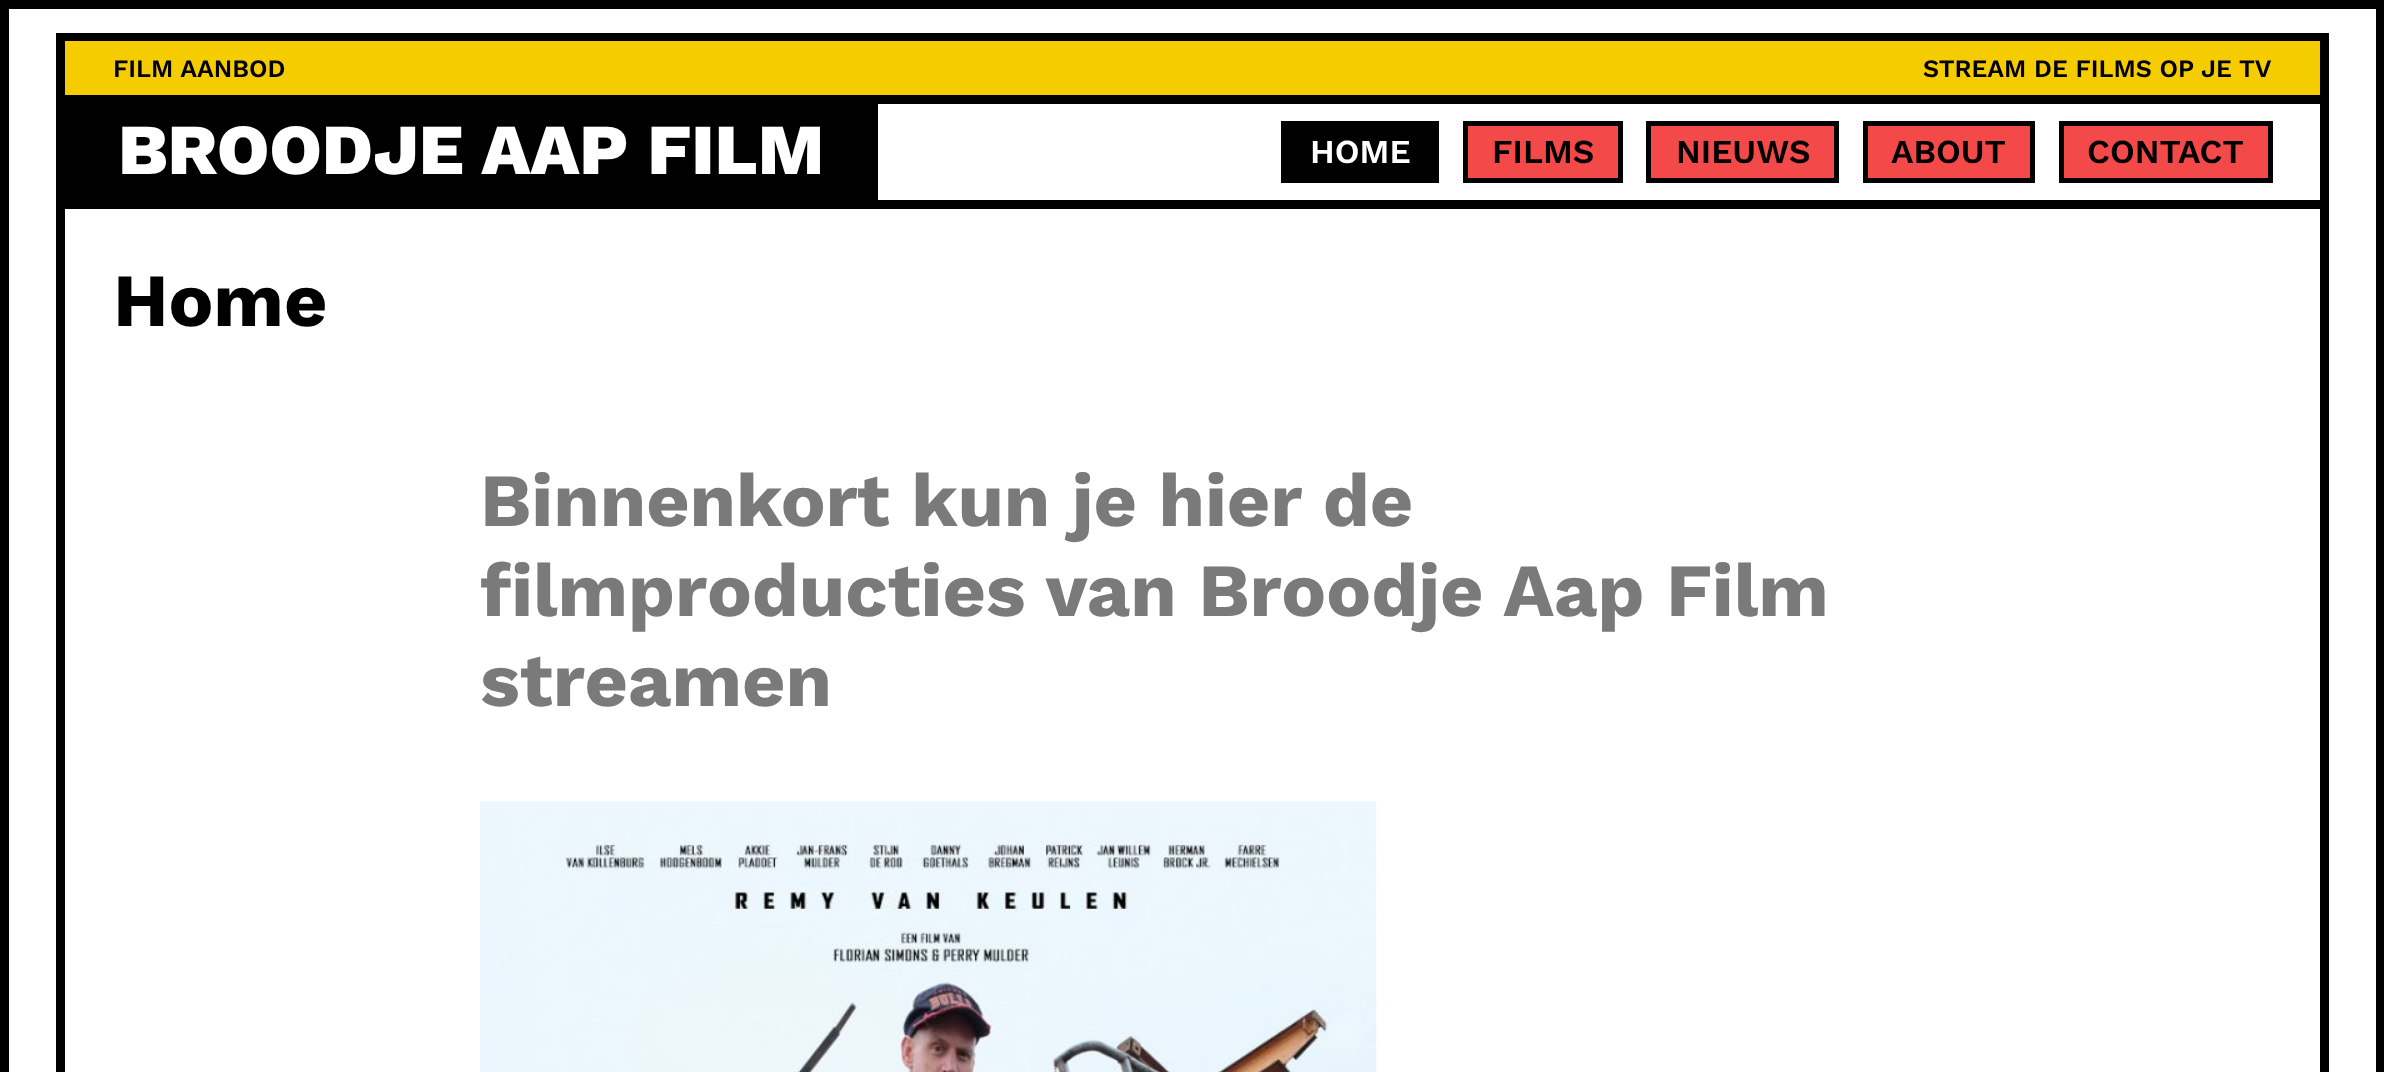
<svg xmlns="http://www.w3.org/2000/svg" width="2384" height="1072">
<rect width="100%" height="100%" fill="#000"/>
<rect x="9" y="9" width="2367" height="1063" fill="#fff"/>
<rect x="65" y="41" width="2255" height="54" fill="#f5cc00"/>
<rect x="65" y="33" width="2255" height="8" fill="#000"/>
<rect x="2320" y="33" width="9" height="62" fill="#000"/>
<rect x="56" y="33" width="9" height="62" fill="#000"/>
<text x="113" y="77" style="font-family:Work Sans;font-size:25px;font-weight:600;fill:#000">FILM AANBOD</text>
<text x="1923" y="77" style="font-family:Work Sans;font-size:25px;font-weight:600;fill:#000">STREAM DE FILMS OP JE TV</text>
<rect x="60.5" y="99.5" width="2264" height="105" fill="none" stroke="#000" stroke-width="9"/>
<rect x="65" y="104" width="813" height="96" fill="#000"/>
<text x="118" y="174" style="font-family:Work Sans;font-size:71.5px;font-weight:800;fill:#fff">BROODJE AAP FILM</text>
<rect x="1281" y="121" width="158" height="62" fill="#000"/>
<text x="1310" y="163" style="font-family:Work Sans;font-size:33.5px;font-weight:600;fill:#fff">HOME</text>
<rect x="1465.5" y="123.5" width="155" height="57" fill="#f44949" stroke="#000" stroke-width="5"/>
<text x="1492" y="163" style="font-family:Work Sans;font-size:33.5px;font-weight:600;fill:#000">FILMS</text>
<rect x="1648.5" y="123.5" width="188" height="57" fill="#f44949" stroke="#000" stroke-width="5"/>
<text x="1676" y="163" style="font-family:Work Sans;font-size:33.5px;font-weight:600;fill:#000">NIEUWS</text>
<rect x="1865.5" y="123.5" width="167" height="57" fill="#f44949" stroke="#000" stroke-width="5"/>
<text x="1891" y="163" style="font-family:Work Sans;font-size:33.5px;font-weight:600;fill:#000">ABOUT</text>
<rect x="2061.5" y="123.5" width="209" height="57" fill="#f44949" stroke="#000" stroke-width="5"/>
<text x="2087" y="163" style="font-family:Work Sans;font-size:33.5px;font-weight:600;fill:#000">CONTACT</text>
<rect x="2320" y="209" width="9" height="863" fill="#000"/>
<rect x="56" y="209" width="9" height="863" fill="#000"/>
<text x="113" y="326" style="font-family:Work Sans;font-size:75px;font-weight:bold;fill:#000">Home</text>
<text x="480" y="526" style="font-family:Work Sans;font-size:75px;font-weight:bold;fill:#7a7a7a">Binnenkort kun je hier de</text>
<text x="480" y="616" style="font-family:Work Sans;font-size:75px;font-weight:bold;fill:#7a7a7a">filmproducties van Broodje Aap Film</text>
<text x="480" y="706" style="font-family:Work Sans;font-size:75px;font-weight:bold;fill:#7a7a7a">streamen</text>
<image x="480" y="801" width="897" height="271" href="media/1.png"/>
</svg>
